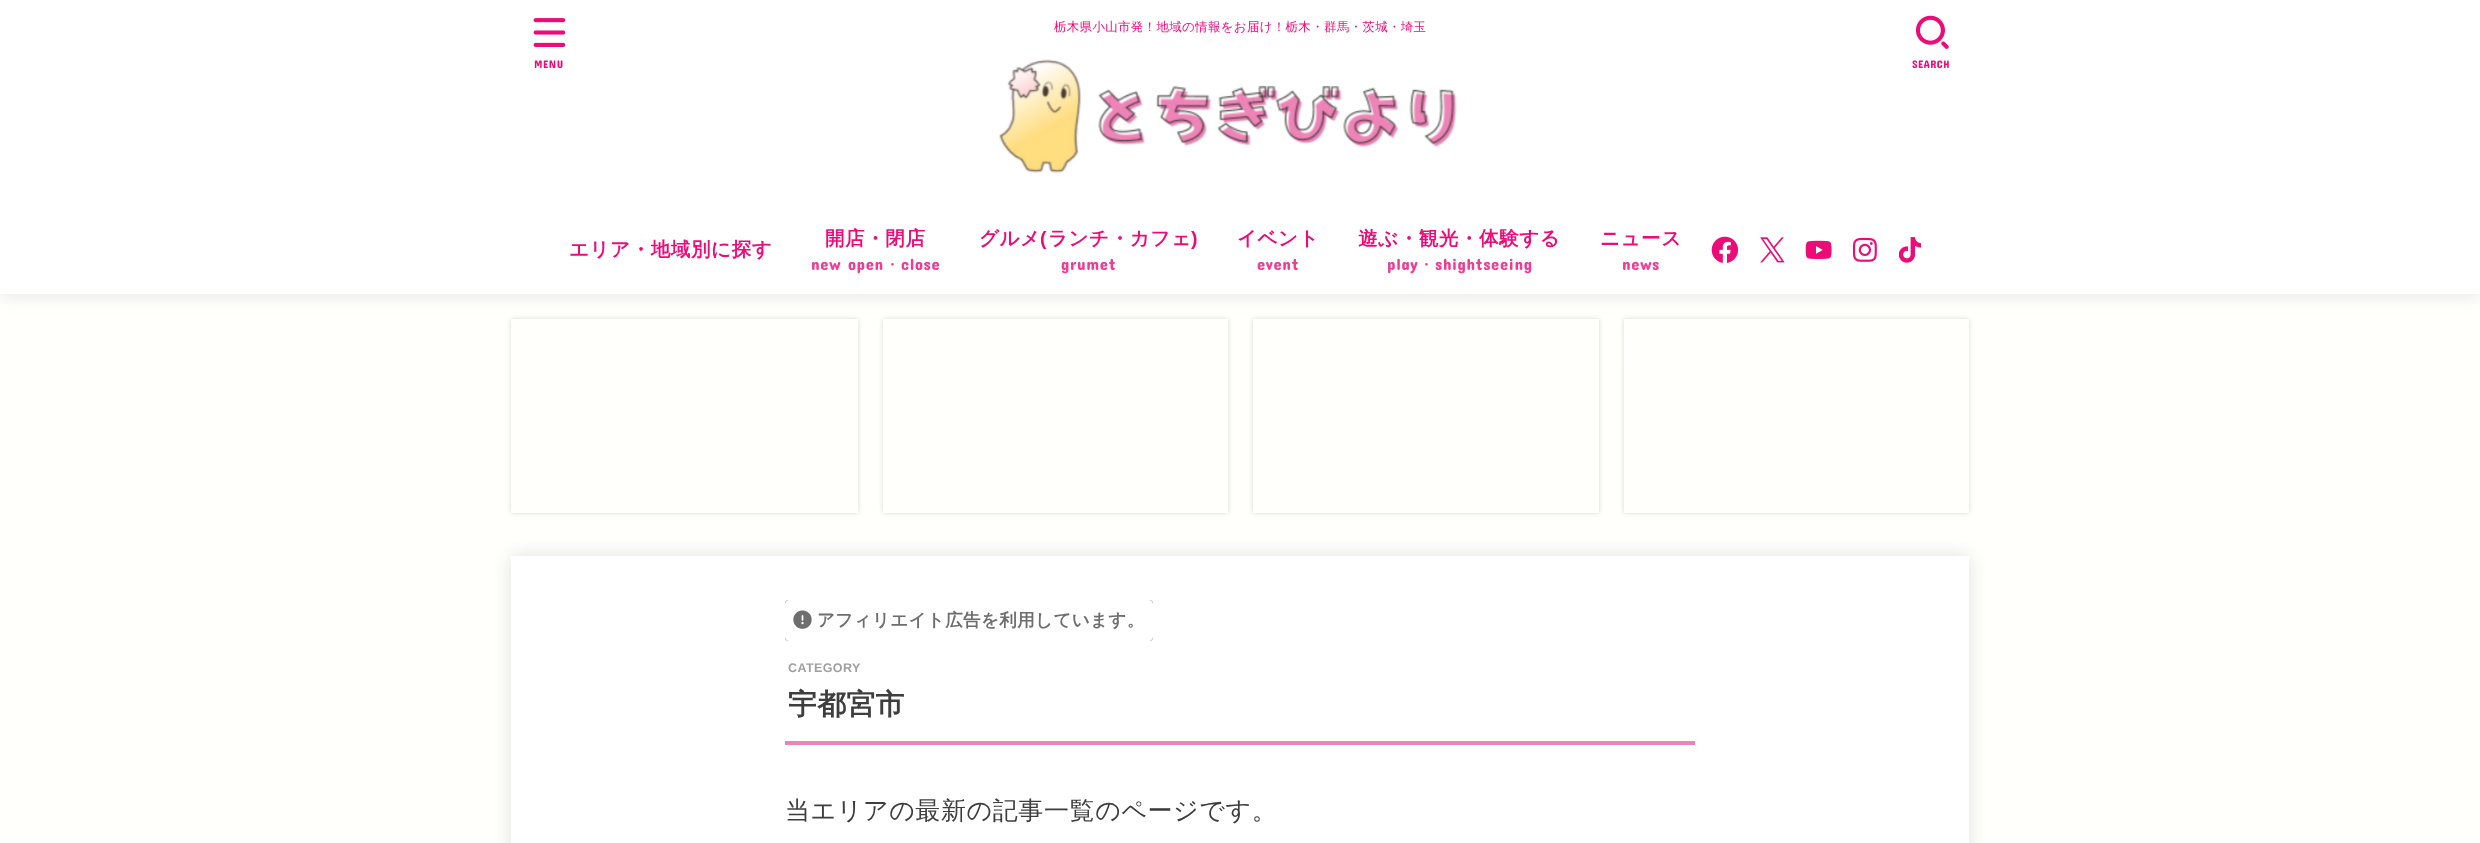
<svg xmlns="http://www.w3.org/2000/svg" width="2480" height="843">
<defs>
<clipPath id="clip1"><path d="M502 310h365v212h-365zm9 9h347v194h-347z" clip-rule="evenodd"/></clipPath>
<clipPath id="clip2"><path d="M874 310h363v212h-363zm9 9h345v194h-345z" clip-rule="evenodd"/></clipPath>
<clipPath id="clip3"><path d="M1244 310h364v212h-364zm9 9h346v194h-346z" clip-rule="evenodd"/></clipPath>
<clipPath id="clip4"><path d="M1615 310h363v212h-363zm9 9h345v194h-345z" clip-rule="evenodd"/></clipPath>
<clipPath id="clip5"><path d="M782 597h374v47h-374zm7 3h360c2 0 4 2 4 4v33c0 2-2 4-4 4h-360c-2 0-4-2-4-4v-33c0-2 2-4 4-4z" clip-rule="evenodd"/></clipPath>
</defs>
<rect width="100%" height="100%" fill="#fffffc"/>
<rect width="2480" height="294" fill="#66666633" filter="blur(9.5px)"/>
<rect width="2480" height="294" fill="#fff"/>
<text x="1054" y="31" style="font-family:WenQuanYi Zen Hei;font-size:12.5px;font-weight:500;letter-spacing:0.3px;fill:#ed0b78">栃木県小山市発！地域の情報をお届け！栃木・群馬・茨城・埼玉</text>
<image x="999" y="59" width="458" height="114" href="media/1.png"/>
<image x="533" y="18" width="33" height="29" href="media/2.png"/>
<text x="534" y="68" style="font-family:Concert One;font-size:11px;letter-spacing:0.5px;fill:#ed0b78">MENU</text>
<image x="1915" y="15" width="34" height="34" href="media/3.png"/>
<text x="1912" y="68" style="font-family:Concert One;font-size:11px;letter-spacing:0.5px;fill:#ed0b78">SEARCH</text>
<text x="569" y="256" style="font-family:WenQuanYi Zen Hei;font-size:19.5px;font-weight:bold;letter-spacing:0.6px;fill:#ed0b78">エリア・地域別に探す</text>
<text x="825" y="245" style="font-family:WenQuanYi Zen Hei;font-size:19.5px;font-weight:bold;letter-spacing:0.6px;fill:#ed0b78">開店・閉店</text>
<text x="811" y="270" style="font-family:Concert One;font-size:16.5px;letter-spacing:0.6px;fill:#f13c93">new open</text>
<text x="884" y="270" style="font-family:WenQuanYi Zen Hei;font-size:16.5px;font-weight:500;letter-spacing:0.6px;fill:#f13c93">・</text>
<text x="901" y="270" style="font-family:Concert One;font-size:16.5px;letter-spacing:0.6px;fill:#f13c93">close</text>
<text x="979" y="245" style="font-family:WenQuanYi Zen Hei;font-size:19.5px;font-weight:bold;letter-spacing:0.6px;fill:#ed0b78">グルメ</text>
<text x="1040" y="245" style="font-family:Liberation Sans;font-size:19.5px;font-weight:bold;letter-spacing:0.6px;fill:#ed0b78">(</text>
<text x="1048" y="245" style="font-family:WenQuanYi Zen Hei;font-size:19.5px;font-weight:bold;letter-spacing:0.6px;fill:#ed0b78">ランチ・カフェ</text>
<text x="1191" y="245" style="font-family:Liberation Sans;font-size:19.5px;font-weight:bold;letter-spacing:0.6px;fill:#ed0b78">)</text>
<text x="1061" y="270" style="font-family:Concert One;font-size:16.5px;letter-spacing:0.6px;fill:#f13c93">grumet</text>
<text x="1237" y="245" style="font-family:WenQuanYi Zen Hei;font-size:19.5px;font-weight:bold;letter-spacing:0.6px;fill:#ed0b78">イベント</text>
<text x="1257" y="270" style="font-family:Concert One;font-size:16.5px;letter-spacing:0.6px;fill:#f13c93">event</text>
<text x="1358" y="245" style="font-family:WenQuanYi Zen Hei;font-size:19.5px;font-weight:bold;letter-spacing:0.6px;fill:#ed0b78">遊ぶ・観光・体験する</text>
<text x="1387" y="270" style="font-family:Concert One;font-size:16.5px;letter-spacing:0.6px;fill:#f13c93">play</text>
<text x="1418" y="270" style="font-family:WenQuanYi Zen Hei;font-size:16.5px;font-weight:500;letter-spacing:0.6px;fill:#f13c93">・</text>
<text x="1435" y="270" style="font-family:Concert One;font-size:16.5px;letter-spacing:0.6px;fill:#f13c93">shightseeing</text>
<text x="1600" y="245" style="font-family:WenQuanYi Zen Hei;font-size:19.5px;font-weight:bold;letter-spacing:0.6px;fill:#ed0b78">ニュース</text>
<text x="1622" y="270" style="font-family:Concert One;font-size:16.5px;letter-spacing:0.6px;fill:#f13c93">news</text>
<image x="1711" y="236" width="28" height="27" href="media/4.png"/>
<image x="1760" y="237" width="25" height="26" href="media/5.png"/>
<image x="1805" y="240" width="27" height="19" href="media/6.png"/>
<image x="1852" y="237" width="25" height="25" href="media/7.png"/>
<image x="1899" y="237" width="22" height="26" href="media/8.png"/>
<g clip-path="url(#clip1)">
<rect x="511" y="319" width="347" height="194" fill="#00000026" filter="blur(2.5px)"/>
</g>
<rect x="518" y="325" width="50" height="1" fill="#fff"/>
<rect x="518" y="325" width="1" height="50" fill="#fff"/>
<rect x="850" y="456" width="1" height="50" fill="#fff"/>
<rect x="801" y="505" width="50" height="1" fill="#fff"/>
<g clip-path="url(#clip2)">
<rect x="883" y="319" width="345" height="194" fill="#00000026" filter="blur(2.5px)"/>
</g>
<rect x="889" y="325" width="50" height="1" fill="#fff"/>
<rect x="889" y="325" width="1" height="50" fill="#fff"/>
<rect x="1220" y="456" width="1" height="50" fill="#fff"/>
<rect x="1171" y="505" width="50" height="1" fill="#fff"/>
<g clip-path="url(#clip3)">
<rect x="1253" y="319" width="346" height="194" fill="#00000026" filter="blur(2.5px)"/>
</g>
<rect x="1259" y="325" width="50" height="1" fill="#fff"/>
<rect x="1259" y="325" width="1" height="50" fill="#fff"/>
<rect x="1591" y="456" width="1" height="50" fill="#fff"/>
<rect x="1543" y="505" width="50" height="1" fill="#fff"/>
<g clip-path="url(#clip4)">
<rect x="1624" y="319" width="345" height="194" fill="#00000026" filter="blur(2.5px)"/>
</g>
<rect x="1630" y="325" width="50" height="1" fill="#fff"/>
<rect x="1630" y="325" width="1" height="50" fill="#fff"/>
<rect x="1961" y="456" width="1" height="50" fill="#fff"/>
<rect x="1913" y="505" width="50" height="1" fill="#fff"/>
<rect x="511" y="556" width="1458" height="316" fill="#66666633" filter="blur(9.5px)"/>
<rect x="511" y="556" width="1458" height="287" fill="#fff"/>
<g clip-path="url(#clip5)">
<rect x="785" y="600" width="368" height="41" rx="4" fill="#6e6e6e" filter="blur(0.5px)"/>
</g>
<image x="793" y="610" width="19" height="19" href="media/9.png"/>
<text x="817" y="626" style="font-family:WenQuanYi Zen Hei;font-size:17.5px;font-weight:bold;letter-spacing:0.4px;fill:#6e6e6e">アフィリエイト広告を利用しています。</text>
<rect x="785" y="741" width="910" height="4" fill="#ed83b6"/>
<text x="788" y="672" style="font-family:Liberation Sans;font-size:12.5px;font-weight:bold;letter-spacing:0.4px;fill:#9f9f9f">CATEGORY</text>
<text x="788" y="714" style="font-family:WenQuanYi Zen Hei;font-size:28.75px;font-weight:bold;letter-spacing:0.4px;fill:#3e3e3e">宇都宮市</text>
<text x="785" y="819" style="font-family:WenQuanYi Zen Hei;font-size:25px;font-weight:500;letter-spacing:0.6px;fill:#3e3e3e">当エリアの最新の記事一覧のページです。</text>
</svg>
